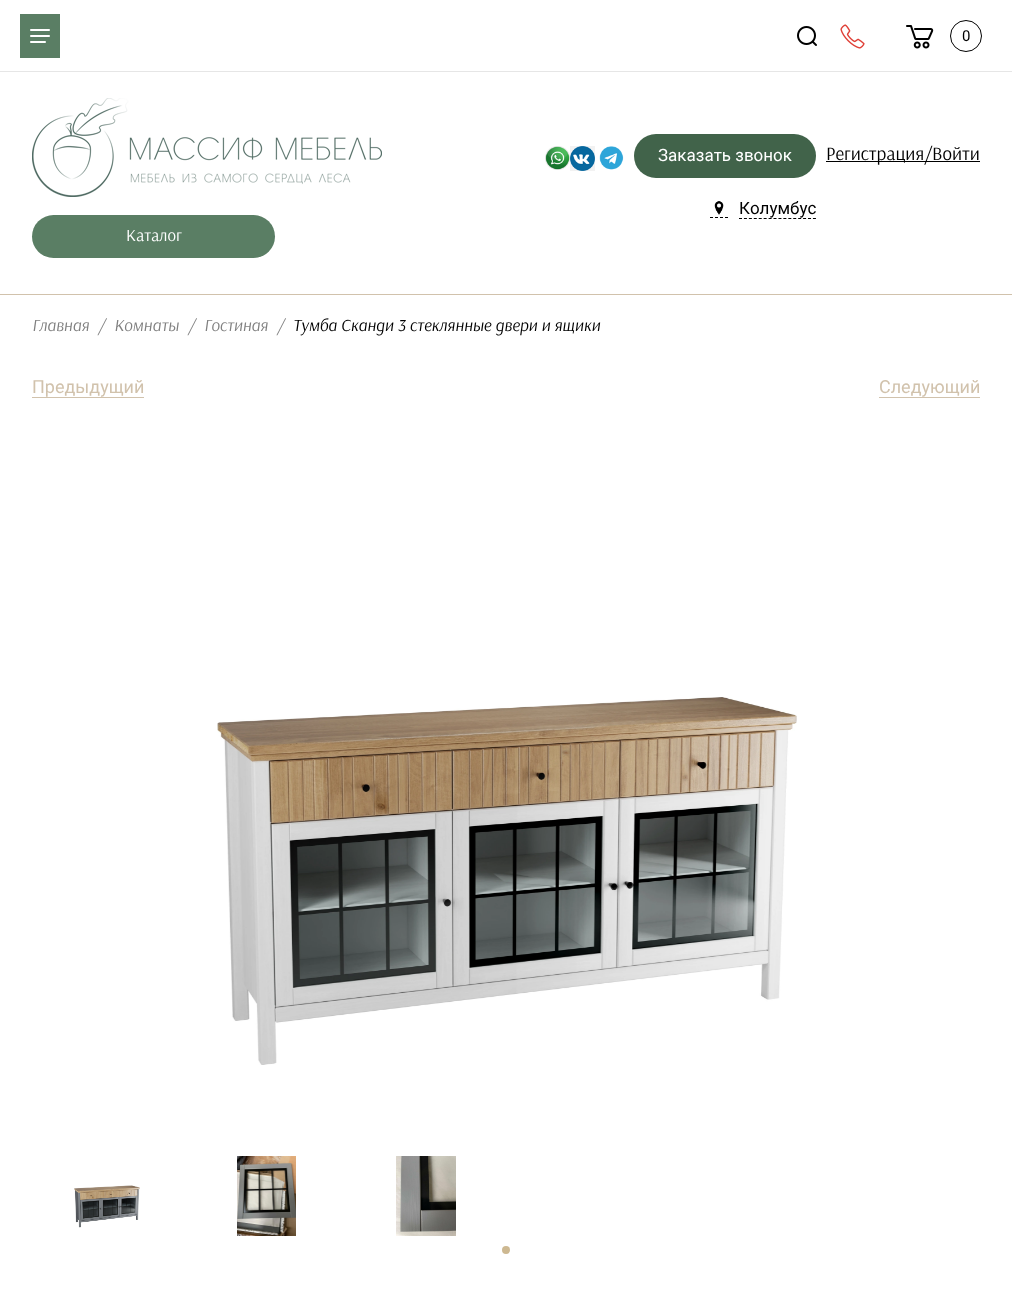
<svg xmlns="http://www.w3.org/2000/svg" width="1012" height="1307">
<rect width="100%" height="100%" fill="#fff"/>
<rect y="294" width="1012" height="1" fill="#d1c2ac"/>
<rect y="71" width="1012" height="1" fill="#e6e6e6"/>
<rect x="20" y="14" width="40" height="44" fill="#5a7e64"/>
<image x="30" y="29" width="20" height="14" href="media/1.png"/>
<image x="797" y="26" width="20" height="20" href="media/2.png"/>
<image x="840" y="24" width="25" height="25" href="media/3.png"/>
<image x="906" y="25" width="28" height="24" href="media/4.png"/>
<circle cx="966" cy="36" r="15.5" fill="none" stroke="#000"/>
<text x="962" y="41" style="font-family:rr;font-size:15px;fill:#000">0</text>
<image x="545" y="146" width="25" height="24" href="media/5.png"/>
<image x="570" y="146" width="25" height="25" href="media/6.png"/>
<image x="599" y="146" width="25" height="24" href="media/7.png"/>
<rect x="634" y="134" width="182" height="44" rx="22" fill="#41634a"/>
<text x="658" y="161" style="font-family:rr;font-size:17px;fill:#fff">Заказать звонок</text>
<path d="M710 217.5h18" fill="none" stroke="#000" stroke-dasharray="3 2"/>
<path d="M739 218.5h77" fill="none" stroke="#000" stroke-dasharray="3 1.93"/>
<image x="714" y="201" width="10" height="14" href="media/8.png"/>
<text x="739" y="214" style="font-family:rr;font-size:17px;fill:#000">Колумбус</text>
<rect x="826" y="161" width="154" height="1" fill="#000"/>
<text x="826" y="160" style="font-family:Arsenal;font-size:19px;fill:#000">Регистрация/Войти</text>
<image x="32" y="98" width="350" height="99" href="media/9.png"/>
<rect x="32" y="215" width="243" height="43" rx="21.5" fill="#5a7e64"/>
<text x="126" y="241" style="font-family:Arsenal;font-size:17px;fill:#fff">Каталог</text>
<text x="32" y="331" style="font-family:Arsenal;font-size:17px;font-style:italic;fill:#808080">Главная</text>
<text x="98" y="331" style="font-family:Arsenal;font-size:17px;font-style:italic;fill:#808080">/</text>
<text x="114" y="331" style="font-family:Arsenal;font-size:17px;font-style:italic;fill:#808080">Комнаты</text>
<text x="188" y="331" style="font-family:Arsenal;font-size:17px;font-style:italic;fill:#808080">/</text>
<text x="204" y="331" style="font-family:Arsenal;font-size:17px;font-style:italic;fill:#808080">Гостиная</text>
<text x="277" y="331" style="font-family:Arsenal;font-size:17px;font-style:italic;fill:#808080">/</text>
<text x="293" y="331" style="font-family:Arsenal;font-size:17px;font-style:italic;fill:#000">Тумба Сканди 3 стеклянные двери и ящики</text>
<rect x="32" y="397" width="112" height="1" fill="#d1c2ac"/>
<text x="32" y="393" style="font-family:rr;font-size:18px;fill:#d1c2ac">Предыдущий</text>
<rect x="879" y="397" width="101" height="1" fill="#d1c2ac"/>
<text x="879" y="393" style="font-family:rr;font-size:18px;fill:#d1c2ac">Следующий</text>
<image x="217" y="697" width="580" height="368" href="media/10.png"/>
<image x="74" y="1185" width="66" height="43" href="media/11.png"/>
<image x="237" y="1156" width="59" height="80" href="media/12.png"/>
<image x="396" y="1156" width="60" height="80" href="media/13.png"/>
<circle cx="506" cy="1250" r="4" fill="#cdb891"/>
</svg>
